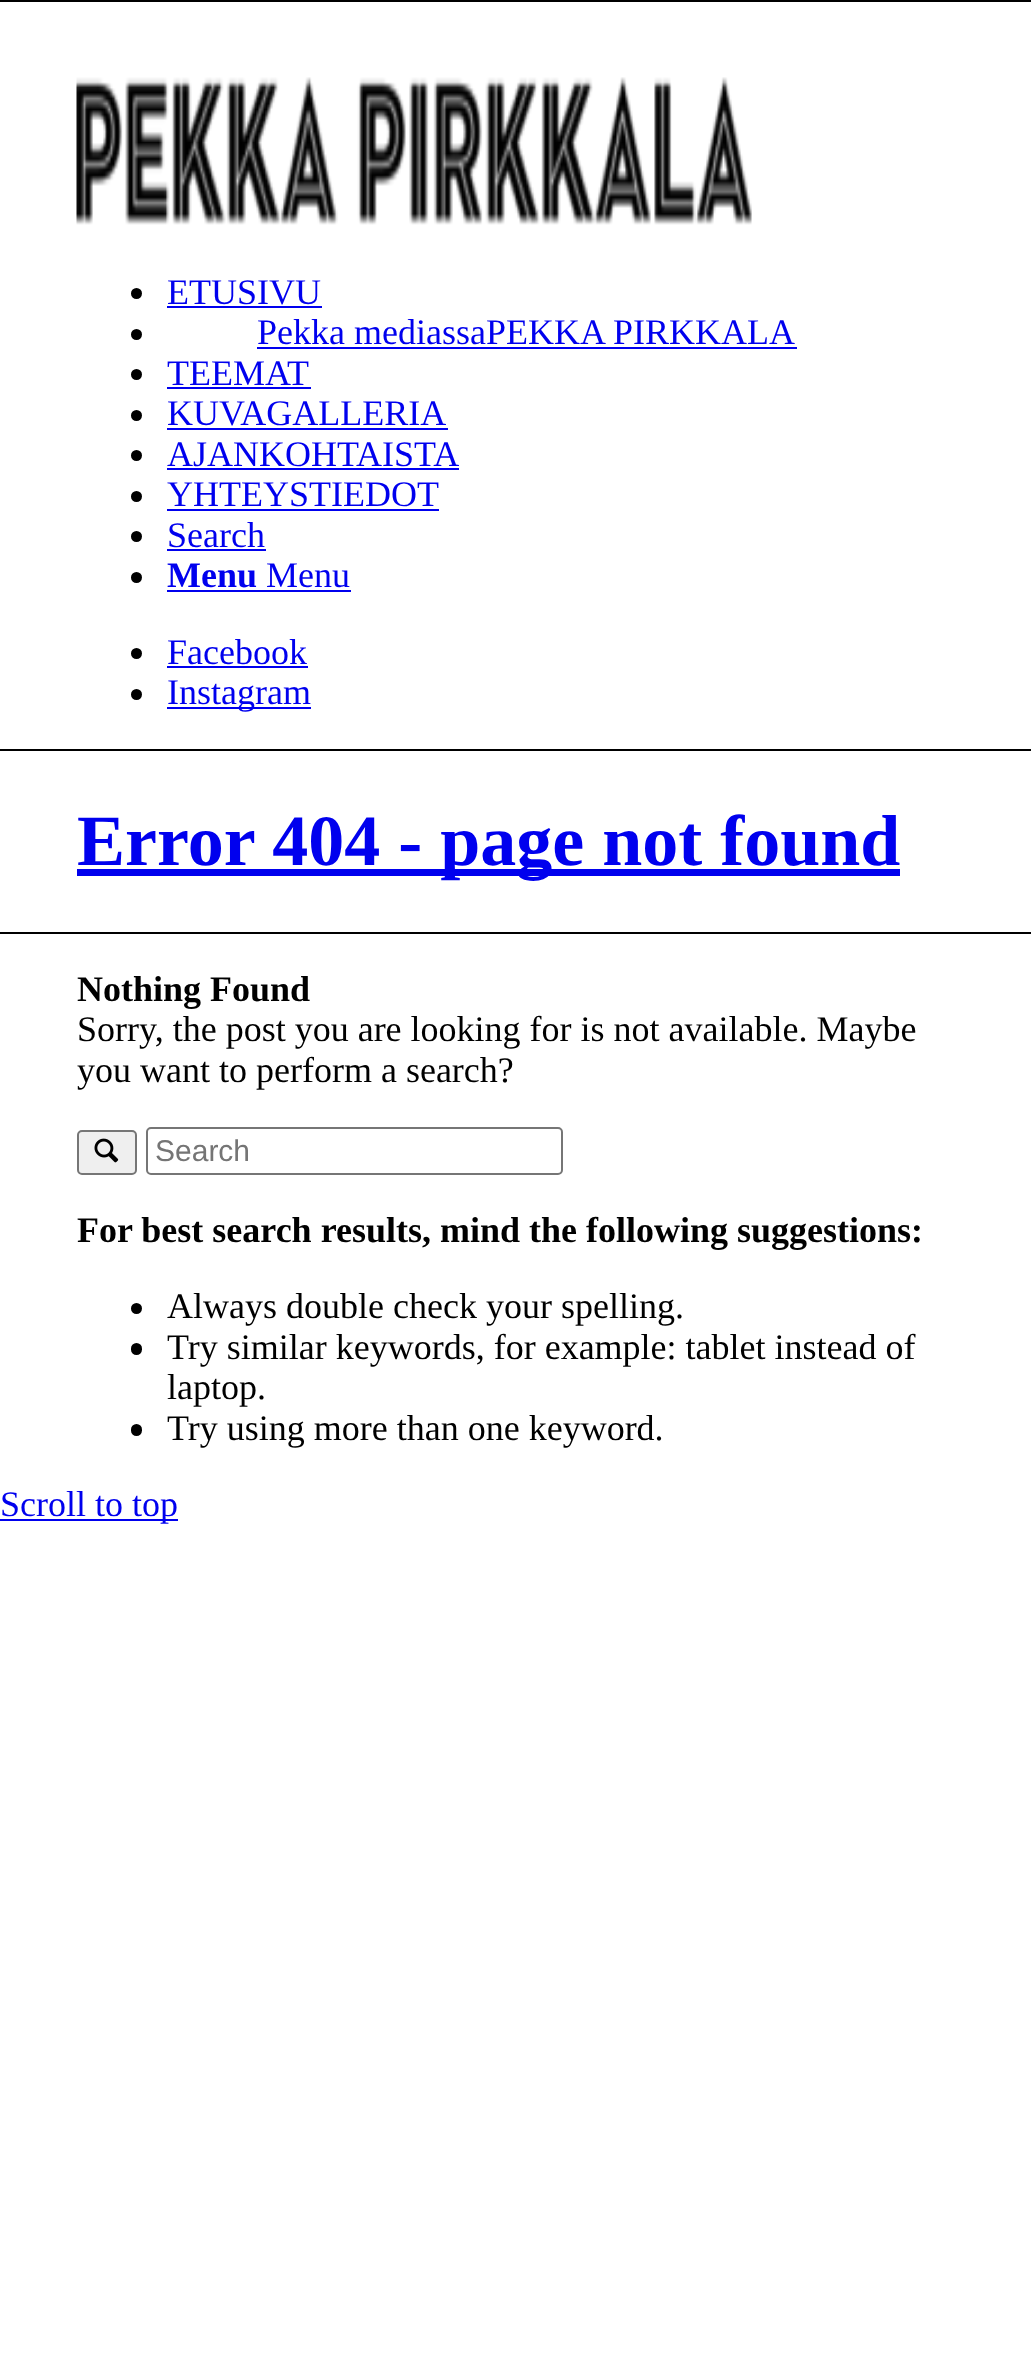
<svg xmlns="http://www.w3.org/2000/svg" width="1031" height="2376">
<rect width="100%" height="100%" fill="#fff"/>
<rect width="1031" height="2" fill="#000"/>
<image x="76" y="77" width="676" height="148" href="media/1.png"/>
<circle cx="136.5" cy="293.5" r="5.5" fill="#000"/>
<text x="167" y="304" style="font-family:Liberation Serif;font-size:36px;fill:#00e">ETUSIVU</text>
<rect x="167" y="306" width="155" height="2" fill="#00e"/>
<circle cx="136.5" cy="334.5" r="5.5" fill="#000"/>
<text x="257" y="344" style="font-family:Liberation Serif;font-size:36px;fill:#00e">Pekka mediassa</text>
<text x="486" y="344" style="font-family:Liberation Serif;font-size:36px;fill:#00e">PEKKA PIRKKALA</text>
<rect x="257" y="347" width="540" height="2" fill="#00e"/>
<circle cx="136.5" cy="374.5" r="5.5" fill="#000"/>
<text x="167" y="385" style="font-family:Liberation Serif;font-size:36px;fill:#00e">TEEMAT</text>
<rect x="167" y="387" width="144" height="2" fill="#00e"/>
<circle cx="136.5" cy="415.5" r="5.5" fill="#000"/>
<text x="167" y="425" style="font-family:Liberation Serif;font-size:36px;fill:#00e">KUVAGALLERIA</text>
<rect x="167" y="428" width="281" height="2" fill="#00e"/>
<circle cx="136.5" cy="455.5" r="5.5" fill="#000"/>
<text x="167" y="466" style="font-family:Liberation Serif;font-size:36px;fill:#00e">AJANKOHTAISTA</text>
<rect x="167" y="468" width="292" height="2" fill="#00e"/>
<circle cx="136.5" cy="496.5" r="5.5" fill="#000"/>
<text x="167" y="506" style="font-family:Liberation Serif;font-size:36px;fill:#00e">YHTEYSTIEDOT</text>
<rect x="167" y="509" width="272" height="2" fill="#00e"/>
<circle cx="136.5" cy="536.5" r="5.5" fill="#000"/>
<text x="167" y="547" style="font-family:Liberation Serif;font-size:36px;fill:#00e">Search</text>
<rect x="167" y="549" width="99" height="2" fill="#00e"/>
<circle cx="136.5" cy="577.5" r="5.5" fill="#000"/>
<text x="167" y="587" style="font-family:Liberation Serif;font-size:36px;font-weight:bold;fill:#00e">Menu</text>
<rect x="167" y="590" width="184" height="2" fill="#00e"/>
<text x="266" y="587" style="font-family:Liberation Serif;font-size:36px;fill:#00e">Menu</text>
<circle cx="136.5" cy="653.5" r="5.5" fill="#000"/>
<text x="167" y="664" style="font-family:Liberation Serif;font-size:36px;fill:#00e">Facebook</text>
<rect x="167" y="666" width="141" height="2" fill="#00e"/>
<circle cx="136.5" cy="694.5" r="5.5" fill="#000"/>
<rect x="167" y="707" width="144" height="2" fill="#00e"/>
<text x="167" y="704" style="font-family:Liberation Serif;font-size:36px;fill:#00e">Instagram</text>
<rect y="749" width="1031" height="2" fill="#000"/>
<rect x="77" y="869" width="823" height="7" fill="#00e"/>
<text x="77" y="865" style="font-family:Liberation Serif;font-size:72px;font-weight:bold;fill:#00e">Error 404 - page not found</text>
<rect y="932" width="1031" height="2" fill="#000"/>
<text x="77" y="1001" style="font-family:Liberation Serif;font-size:36px;font-weight:bold;fill:#000">Nothing Found</text>
<text x="77" y="1041" style="font-family:Liberation Serif;font-size:36px;fill:#000">Sorry, the post you are looking for is not available. Maybe</text>
<text x="77" y="1082" style="font-family:Liberation Serif;font-size:36px;fill:#000">you want to perform a search?</text>
<rect x="78" y="1131" width="58" height="43" rx="4" fill="#efefef" stroke="#767676" stroke-width="2"/>
<image x="94" y="1138" width="25" height="25" href="media/2.png"/>
<rect x="147" y="1128" width="415" height="46" rx="4" fill="none" stroke="#767676" stroke-width="2"/>
<text x="155" y="1161" style="font-family:Liberation Sans;font-size:30px;fill:#757575">Search</text>
<text x="77" y="1242" style="font-family:Liberation Serif;font-size:36px;font-weight:bold;fill:#000">For best search results, mind the following suggestions:</text>
<circle cx="136.5" cy="1308.5" r="5.5" fill="#000"/>
<text x="167" y="1318" style="font-family:Liberation Serif;font-size:36px;fill:#000">Always double check your spelling.</text>
<rect x="131" y="1343" width="11" height="12" rx="5.5" fill="#000"/>
<text x="167" y="1359" style="font-family:Liberation Serif;font-size:36px;fill:#000">Try similar keywords, for example: tablet instead of</text>
<text x="167" y="1399" style="font-family:Liberation Serif;font-size:36px;fill:#000">laptop.</text>
<rect x="131" y="1424" width="11" height="12" rx="5.5" fill="#000"/>
<text x="167" y="1440" style="font-family:Liberation Serif;font-size:36px;fill:#000">Try using more than one keyword.</text>
<rect y="1519" width="178" height="2" fill="#00e"/>
<text x="0" y="1516" style="font-family:Liberation Serif;font-size:36px;fill:#00e">Scroll to top</text>
</svg>
